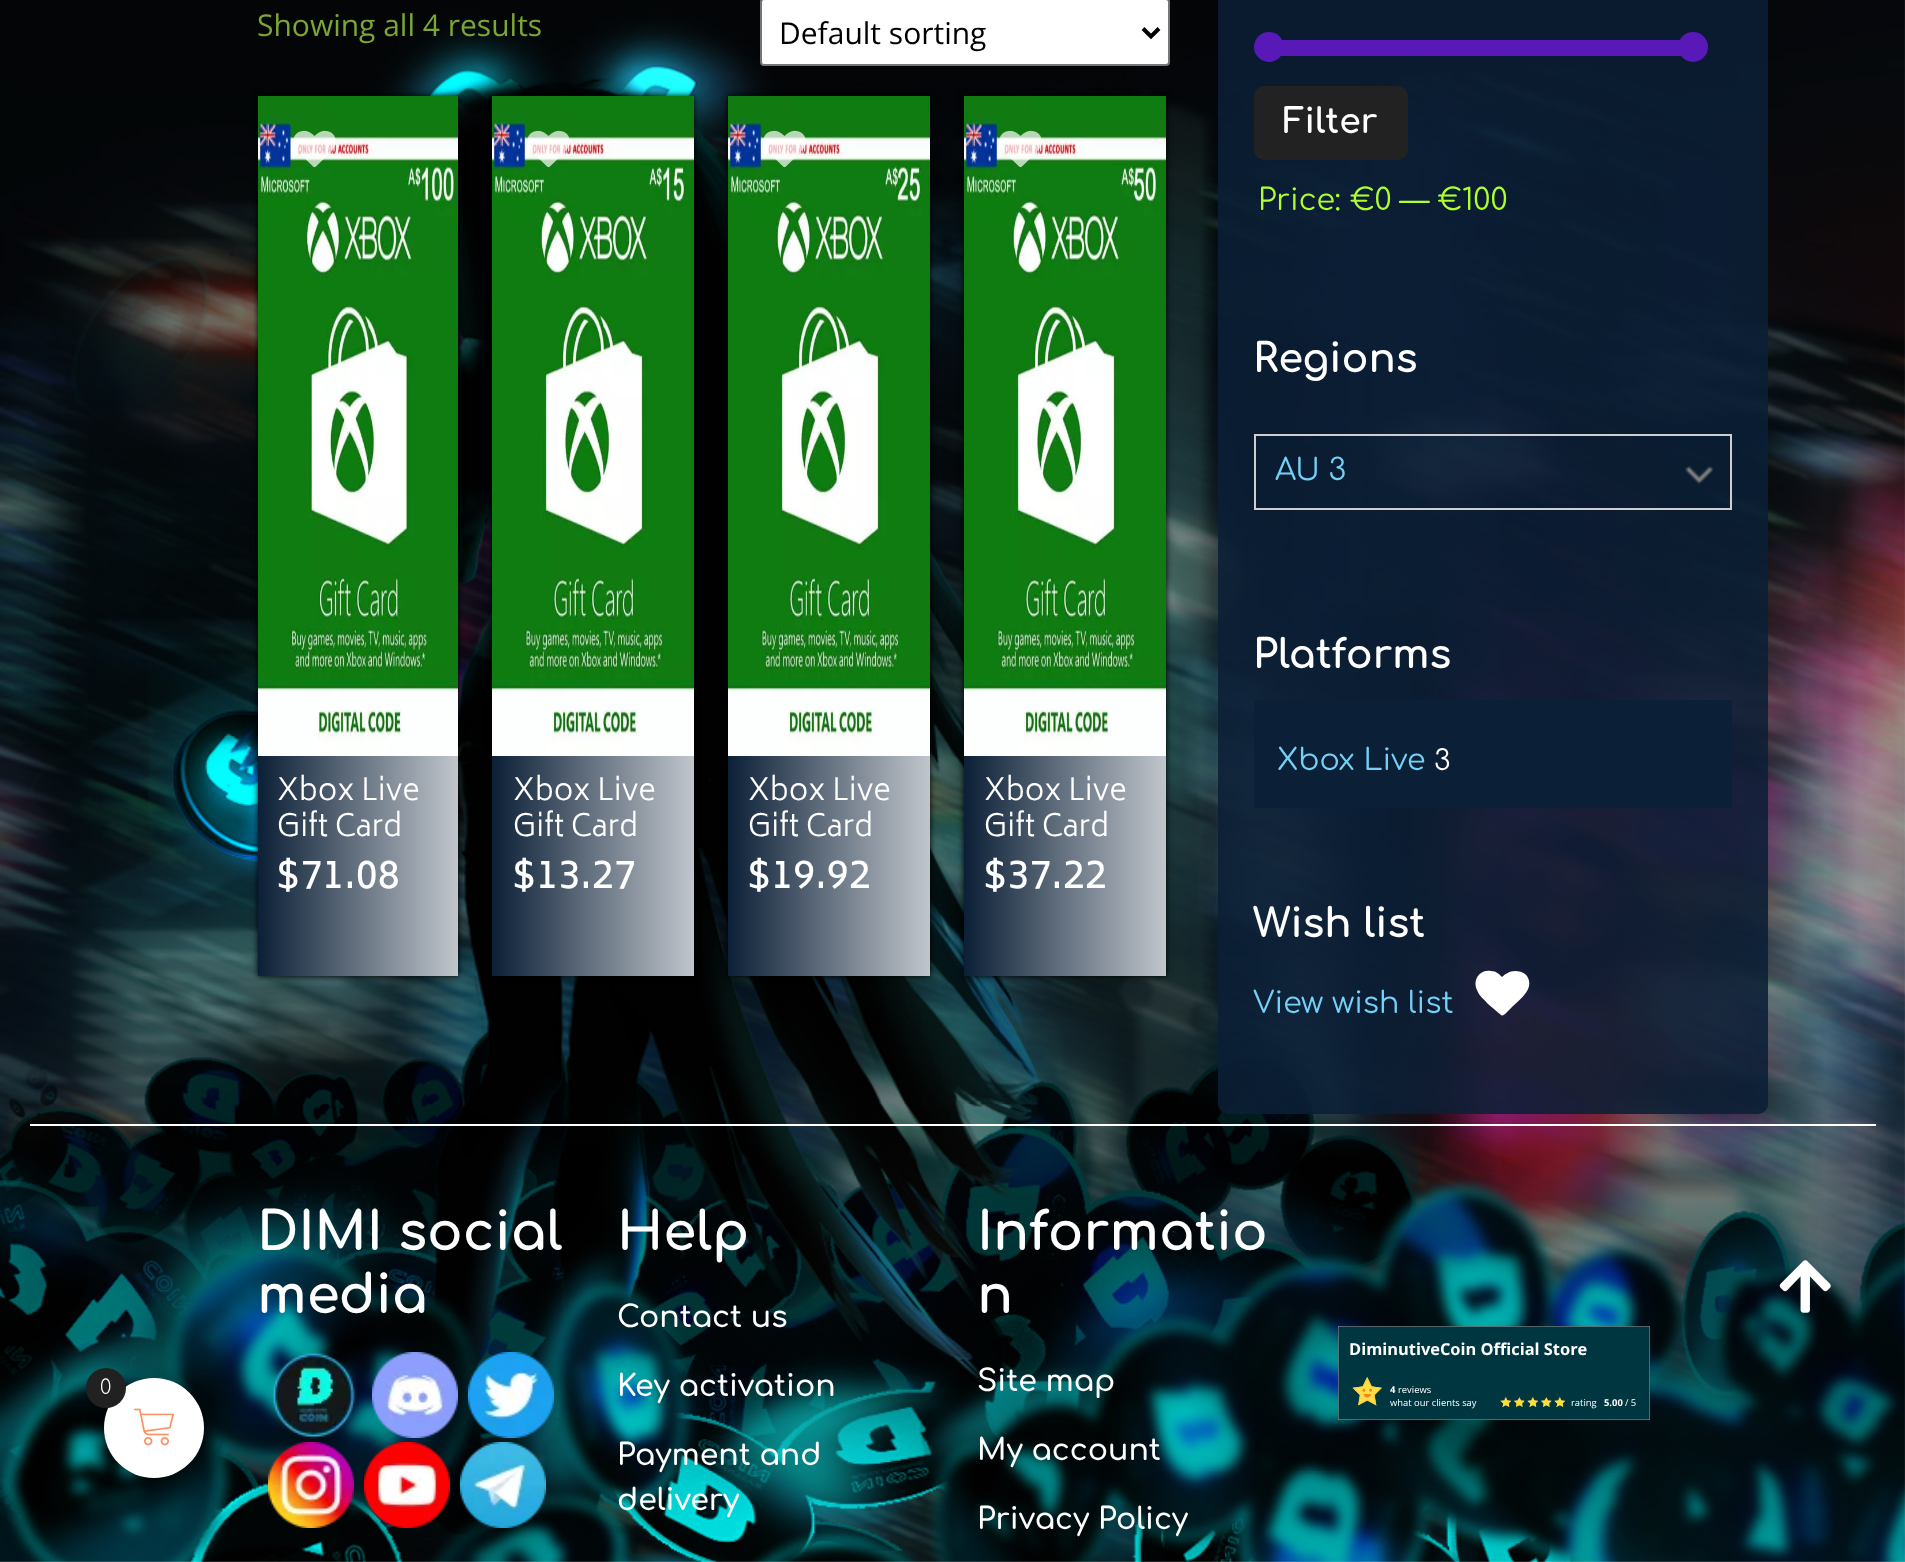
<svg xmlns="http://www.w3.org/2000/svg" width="1905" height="1562">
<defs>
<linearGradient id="g1" gradientUnits="userSpaceOnUse" x1="458" y1="536" x2="258" y2="536"><stop offset="0" stop-color="#c1c6cc"/><stop offset="1" stop-color="#0b1f36"/></linearGradient>
<linearGradient id="g2" gradientUnits="userSpaceOnUse" x1="694" y1="536" x2="492" y2="536"><stop offset="0" stop-color="#c1c6cc"/><stop offset="1" stop-color="#0b1f36"/></linearGradient>
<linearGradient id="g3" gradientUnits="userSpaceOnUse" x1="930" y1="536" x2="728" y2="536"><stop offset="0" stop-color="#c1c6cc"/><stop offset="1" stop-color="#0b1f36"/></linearGradient>
<linearGradient id="g4" gradientUnits="userSpaceOnUse" x1="1166" y1="536" x2="964" y2="536"><stop offset="0" stop-color="#c1c6cc"/><stop offset="1" stop-color="#0b1f36"/></linearGradient>
</defs>
<rect width="100%" height="100%" fill="#fff"/>
<image x="0" y="0" width="1905" height="1562" href="media/1.png"/>
<text x="257" y="36" style="font-family:Open Sans;font-size:30px;fill:#7da533">Showing all 4 results</text>
<rect x="761" y="-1" width="408" height="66" rx="3" fill="#fff" stroke="#767676" stroke-width="2"/>
<path d="M1143 28.5l8 8l8-8" fill="none" stroke="#000" stroke-width="4"/>
<text x="779" y="44" style="font-family:Open Sans;font-size:30px;fill:#000">Default sorting</text>
<rect x="258" y="96" width="200" height="880" fill="#000" filter="blur(3px)"/>
<rect x="258" y="756" width="200" height="220" fill="url(#g1)"/>
<image x="258" y="96" width="200" height="660" href="media/3.png"/>
<image x="293" y="130" width="43" height="38" href="media/2.png"/>
<text x="277" y="800" style="font-family:Biryani;font-size:30px;font-weight:300;fill:#fff">Xbox Live</text>
<text x="277" y="836" style="font-family:Biryani;font-size:30px;font-weight:300;fill:#fff">Gift Card</text>
<text x="277" y="888" style="font-family:Biryani;font-size:40px;fill:#fff">$71.08</text>
<rect x="492" y="96" width="202" height="880" fill="#000" filter="blur(3px)"/>
<rect x="492" y="756" width="202" height="220" fill="url(#g2)"/>
<image x="492" y="96" width="202" height="660" href="media/5.png"/>
<image x="527" y="130" width="43" height="38" href="media/4.png"/>
<text x="513" y="800" style="font-family:Biryani;font-size:30px;font-weight:300;fill:#fff">Xbox Live</text>
<text x="513" y="836" style="font-family:Biryani;font-size:30px;font-weight:300;fill:#fff">Gift Card</text>
<text x="513" y="888" style="font-family:Biryani;font-size:40px;fill:#fff">$13.27</text>
<rect x="728" y="96" width="202" height="880" fill="#000" filter="blur(3px)"/>
<rect x="728" y="756" width="202" height="220" fill="url(#g3)"/>
<image x="728" y="96" width="202" height="660" href="media/6.png"/>
<image x="763" y="130" width="43" height="38" href="media/4.png"/>
<text x="748" y="800" style="font-family:Biryani;font-size:30px;font-weight:300;fill:#fff">Xbox Live</text>
<text x="748" y="836" style="font-family:Biryani;font-size:30px;font-weight:300;fill:#fff">Gift Card</text>
<text x="748" y="888" style="font-family:Biryani;font-size:40px;fill:#fff">$19.92</text>
<rect x="964" y="96" width="202" height="880" fill="#000" filter="blur(3px)"/>
<rect x="964" y="756" width="202" height="220" fill="url(#g4)"/>
<image x="964" y="96" width="202" height="660" href="media/8.png"/>
<image x="999" y="130" width="43" height="38" href="media/7.png"/>
<text x="984" y="800" style="font-family:Biryani;font-size:30px;font-weight:300;fill:#fff">Xbox Live</text>
<text x="984" y="836" style="font-family:Biryani;font-size:30px;font-weight:300;fill:#fff">Gift Card</text>
<text x="984" y="888" style="font-family:Biryani;font-size:40px;fill:#fff">$37.22</text>
<rect x="1218" y="-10" width="550" height="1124" rx="10" fill="#0b1f36e0"/>
<rect x="1281" y="40" width="400" height="16" fill="#5819b8"/>
<circle cx="1269" cy="47" r="15" fill="#5819b8"/>
<circle cx="1693" cy="47" r="15" fill="#5819b8"/>
<rect x="1254" y="86" width="154" height="74" rx="10" fill="#222"/>
<text x="1283" y="133" style="font-family:Comfortaa;font-size:34.5px;font-weight:bold;fill:#fff">Filter</text>
<text x="1258" y="210" style="font-family:Comfortaa;font-size:30px;fill:#adff2f">Price: €0 — €100</text>
<text x="1253" y="372" style="font-family:Comfortaa;font-size:40px;font-weight:bold;fill:#fff">Regions</text>
<image x="1685" y="466" width="29" height="19" href="media/9.png"/>
<rect x="1255" y="435" width="476" height="74" fill="none" stroke="#cecece" stroke-width="2"/>
<text x="1275" y="480" style="font-family:Comfortaa;font-size:30px;fill:#75d0f7">AU 3</text>
<text x="1253" y="668" style="font-family:Comfortaa;font-size:40px;font-weight:bold;fill:#fff">Platforms</text>
<rect x="1254" y="700" width="478" height="108" fill="#0b1f36"/>
<text x="1277" y="770" style="font-family:Comfortaa;font-size:30px;fill:#75d0f7">Xbox Live</text>
<text x="1434" y="770" style="font-family:Comfortaa;font-size:28px;fill:#fff">3</text>
<text x="1253" y="937" style="font-family:Comfortaa;font-size:40px;font-weight:bold;fill:#fff">Wish list</text>
<text x="1253" y="1013" style="font-family:Comfortaa;font-size:30px;fill:#75d0f7">View wish list</text>
<path d="M1515 971c-5 0-10 3-13 6c-3-3-6-6-11-6c-11-2-19 9-14 19c2 6 7 9 11 14l13 11c2 2 5-2 6-3l6-6c7-7 22-17 14-30c-3-4-8-5-12-5z" fill="#fff"/>
<rect x="30" y="1124" width="1846" height="2" fill="#fff"/>
<text x="257" y="1250" style="font-family:Comfortaa;font-size:53px;font-weight:bold;fill:#fff">DIMI social</text>
<text x="257" y="1313" style="font-family:Comfortaa;font-size:53px;font-weight:bold;fill:#fff">media</text>
<image x="272" y="1353" width="84" height="86" href="media/10.png"/>
<image x="372" y="1352" width="86" height="86" href="media/11.png"/>
<image x="468" y="1352" width="86" height="86" href="media/12.png"/>
<image x="268" y="1442" width="86" height="86" href="media/13.png"/>
<image x="364" y="1442" width="86" height="86" href="media/14.png"/>
<image x="460" y="1442" width="86" height="86" href="media/15.png"/>
<text x="617" y="1250" style="font-family:Comfortaa;font-size:53px;font-weight:bold;fill:#fff">Help</text>
<text x="617" y="1327" style="font-family:Comfortaa;font-size:30px;font-weight:600;fill:#fff">Contact us</text>
<text x="617" y="1396" style="font-family:Comfortaa;font-size:30px;font-weight:600;fill:#fff">Key activation</text>
<text x="617" y="1465" style="font-family:Comfortaa;font-size:30px;font-weight:600;fill:#fff">Payment and</text>
<text x="617" y="1510" style="font-family:Comfortaa;font-size:30px;font-weight:600;fill:#fff">delivery</text>
<text x="977" y="1250" style="font-family:Comfortaa;font-size:53px;font-weight:bold;fill:#fff">Informatio</text>
<text x="977" y="1313" style="font-family:Comfortaa;font-size:53px;font-weight:bold;fill:#fff">n</text>
<text x="977" y="1391" style="font-family:Comfortaa;font-size:30px;font-weight:600;fill:#fff">Site map</text>
<text x="977" y="1460" style="font-family:Comfortaa;font-size:30px;font-weight:600;fill:#fff">My account</text>
<text x="977" y="1529" style="font-family:Comfortaa;font-size:30px;font-weight:600;fill:#fff">Privacy Policy</text>
<rect x="1338.3" y="1326.3" width="311.4" height="93.4" fill="#003640" stroke="#8b8b8b" stroke-width="0.6"/>
<text x="1349" y="1355" style="font-family:Open Sans;font-size:16.4px;font-weight:bold;fill:#fff">DiminutiveCoin Official Store</text>
<image x="1352" y="1377" width="30" height="29" href="media/16.png"/>
<text x="1390" y="1393" style="font-family:Open Sans;font-size:9.4px;font-weight:bold;fill:#fff">4</text>
<text x="1398" y="1393" style="font-family:Open Sans;font-size:9.4px;fill:#fff">reviews</text>
<text x="1390" y="1406" style="font-family:Open Sans;font-size:9.4px;fill:#fff">what our clients say</text>
<image x="1500" y="1397" width="11" height="10" href="media/17.png"/>
<image x="1500" y="1397" width="11" height="10" href="media/18.png"/>
<image x="1514" y="1397" width="11" height="10" href="media/19.png"/>
<image x="1514" y="1397" width="11" height="10" href="media/20.png"/>
<image x="1527" y="1397" width="11" height="10" href="media/21.png"/>
<image x="1527" y="1397" width="11" height="10" href="media/22.png"/>
<image x="1541" y="1397" width="11" height="10" href="media/23.png"/>
<image x="1541" y="1397" width="11" height="10" href="media/24.png"/>
<image x="1554" y="1397" width="11" height="10" href="media/25.png"/>
<image x="1554" y="1397" width="11" height="11" href="media/26.png"/>
<text x="1571" y="1406" style="font-family:Open Sans;font-size:9.4px;fill:#fff">rating</text>
<text x="1604" y="1406" style="font-family:Open Sans;font-size:9.4px;font-weight:bold;fill:#fff">5.00</text>
<text x="1625" y="1406" style="font-family:Open Sans;font-size:9.4px;fill:#fff">/ 5</text>
<image x="1779" y="1260" width="52" height="53" href="media/27.png"/>
<rect x="104" y="1386" width="100" height="100" rx="50" fill="#0000002b" filter="blur(10px)"/>
<circle cx="154" cy="1428" r="50" fill="#fff"/>
<circle cx="106" cy="1388" r="20" fill="#212121"/>
<text x="100" y="1394" style="font-family:Comfortaa;font-size:20px;font-weight:300;fill:#fff">0</text>
<image x="134" y="1408" width="40" height="38" href="media/28.png"/>
</svg>
